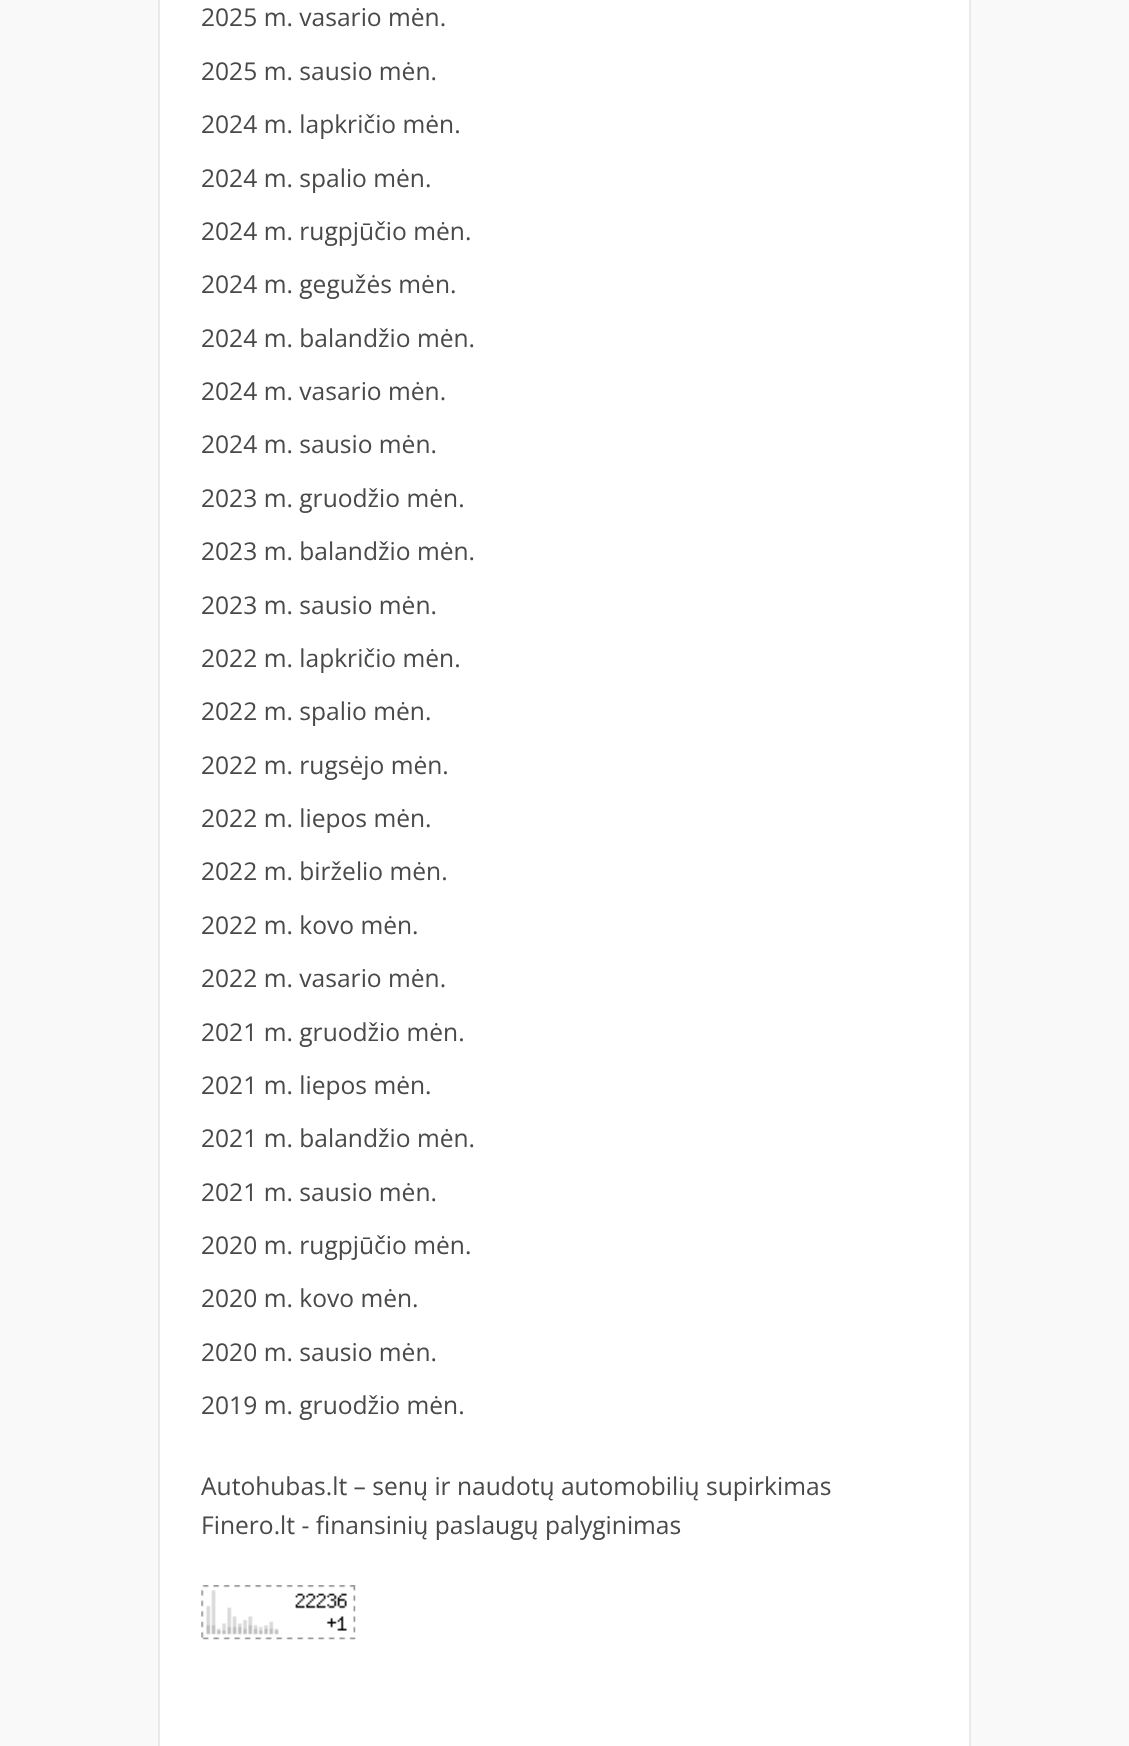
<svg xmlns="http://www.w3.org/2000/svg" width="1129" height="1746">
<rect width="100%" height="100%" fill="#f9f9f9"/>
<rect x="159" y="-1" width="811" height="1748" fill="#fff" stroke="#e9e9e9" stroke-width="2"/>
<text x="201" y="26" style="font-family:Open Sans;font-size:24.6px;fill:#494949">2025 m. vasario mėn.</text>
<text x="201" y="80" style="font-family:Open Sans;font-size:24.6px;fill:#494949">2025 m. sausio mėn.</text>
<text x="201" y="133" style="font-family:Open Sans;font-size:24.6px;fill:#494949">2024 m. lapkričio mėn.</text>
<text x="201" y="187" style="font-family:Open Sans;font-size:24.6px;fill:#494949">2024 m. spalio mėn.</text>
<text x="201" y="240" style="font-family:Open Sans;font-size:24.6px;fill:#494949">2024 m. rugpjūčio mėn.</text>
<text x="201" y="293" style="font-family:Open Sans;font-size:24.6px;fill:#494949">2024 m. gegužės mėn.</text>
<text x="201" y="347" style="font-family:Open Sans;font-size:24.6px;fill:#494949">2024 m. balandžio mėn.</text>
<text x="201" y="400" style="font-family:Open Sans;font-size:24.6px;fill:#494949">2024 m. vasario mėn.</text>
<text x="201" y="453" style="font-family:Open Sans;font-size:24.6px;fill:#494949">2024 m. sausio mėn.</text>
<text x="201" y="507" style="font-family:Open Sans;font-size:24.6px;fill:#494949">2023 m. gruodžio mėn.</text>
<text x="201" y="560" style="font-family:Open Sans;font-size:24.6px;fill:#494949">2023 m. balandžio mėn.</text>
<text x="201" y="614" style="font-family:Open Sans;font-size:24.6px;fill:#494949">2023 m. sausio mėn.</text>
<text x="201" y="667" style="font-family:Open Sans;font-size:24.6px;fill:#494949">2022 m. lapkričio mėn.</text>
<text x="201" y="720" style="font-family:Open Sans;font-size:24.6px;fill:#494949">2022 m. spalio mėn.</text>
<text x="201" y="774" style="font-family:Open Sans;font-size:24.6px;fill:#494949">2022 m. rugsėjo mėn.</text>
<text x="201" y="827" style="font-family:Open Sans;font-size:24.6px;fill:#494949">2022 m. liepos mėn.</text>
<text x="201" y="880" style="font-family:Open Sans;font-size:24.6px;fill:#494949">2022 m. birželio mėn.</text>
<text x="201" y="934" style="font-family:Open Sans;font-size:24.6px;fill:#494949">2022 m. kovo mėn.</text>
<text x="201" y="987" style="font-family:Open Sans;font-size:24.6px;fill:#494949">2022 m. vasario mėn.</text>
<text x="201" y="1041" style="font-family:Open Sans;font-size:24.6px;fill:#494949">2021 m. gruodžio mėn.</text>
<text x="201" y="1094" style="font-family:Open Sans;font-size:24.6px;fill:#494949">2021 m. liepos mėn.</text>
<text x="201" y="1147" style="font-family:Open Sans;font-size:24.6px;fill:#494949">2021 m. balandžio mėn.</text>
<text x="201" y="1201" style="font-family:Open Sans;font-size:24.6px;fill:#494949">2021 m. sausio mėn.</text>
<text x="201" y="1254" style="font-family:Open Sans;font-size:24.6px;fill:#494949">2020 m. rugpjūčio mėn.</text>
<text x="201" y="1307" style="font-family:Open Sans;font-size:24.6px;fill:#494949">2020 m. kovo mėn.</text>
<text x="201" y="1361" style="font-family:Open Sans;font-size:24.6px;fill:#494949">2020 m. sausio mėn.</text>
<text x="201" y="1414" style="font-family:Open Sans;font-size:24.6px;fill:#494949">2019 m. gruodžio mėn.</text>
<text x="201" y="1495" style="font-family:Open Sans;font-size:24.6px;fill:#494949">Autohubas.lt – senų ir naudotų automobilių supirkimas</text>
<text x="201" y="1534" style="font-family:Open Sans;font-size:24.6px;fill:#494949">Finero.lt - finansinių paslaugų palyginimas</text>
<image x="201" y="1585" width="155" height="55" href="media/1.png"/>
</svg>
